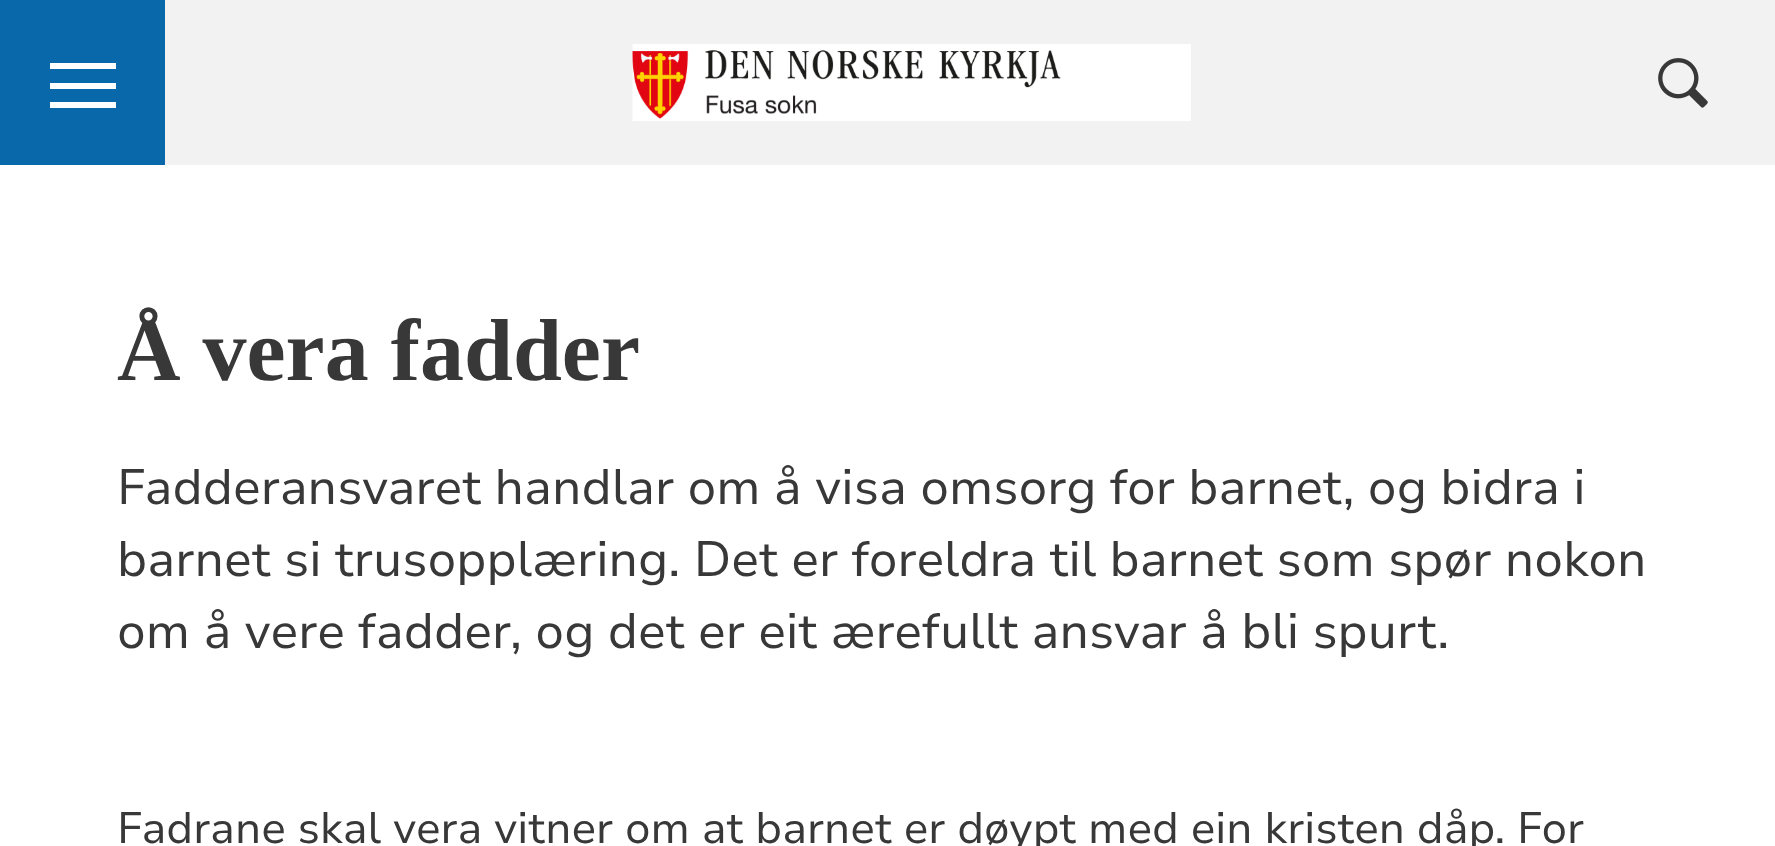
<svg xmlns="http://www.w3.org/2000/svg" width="1775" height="846">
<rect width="100%" height="100%" fill="#fff"/>
<rect x="165" width="1610" height="165" fill="#f2f2f2"/>
<rect width="165" height="165" fill="#0968aa"/>
<rect x="50" y="63" width="66" height="6" fill="#fff"/>
<rect x="50" y="83" width="66" height="6" fill="#fff"/>
<rect x="50" y="102" width="66" height="6" fill="#fff"/>
<image x="632" y="44" width="559" height="77" href="media/1.png"/>
<image x="1658" y="58" width="50" height="50" href="media/2.png"/>
<text x="117" y="380" style="font-family:Liberation Serif;font-size:88px;font-weight:bold;fill:#393838">Å vera fadder</text>
<text x="117" y="504" style="font-family:Nunito Sans;font-size:49.5px;fill:#393838">Fadderansvaret handlar om å visa omsorg for barnet, og bidra i</text>
<text x="117" y="576" style="font-family:Nunito Sans;font-size:49.5px;fill:#393838">barnet si trusopplæring. Det er foreldra til barnet som spør nokon</text>
<text x="117" y="648" style="font-family:Nunito Sans;font-size:49.5px;fill:#393838">om å vere fadder, og det er eit ærefullt ansvar å bli spurt.</text>
<text x="117" y="843" style="font-family:Nunito Sans;font-size:44px;fill:#393838">Fadrane skal vera vitner om at barnet er døypt med ein kristen dåp. For</text>
</svg>
